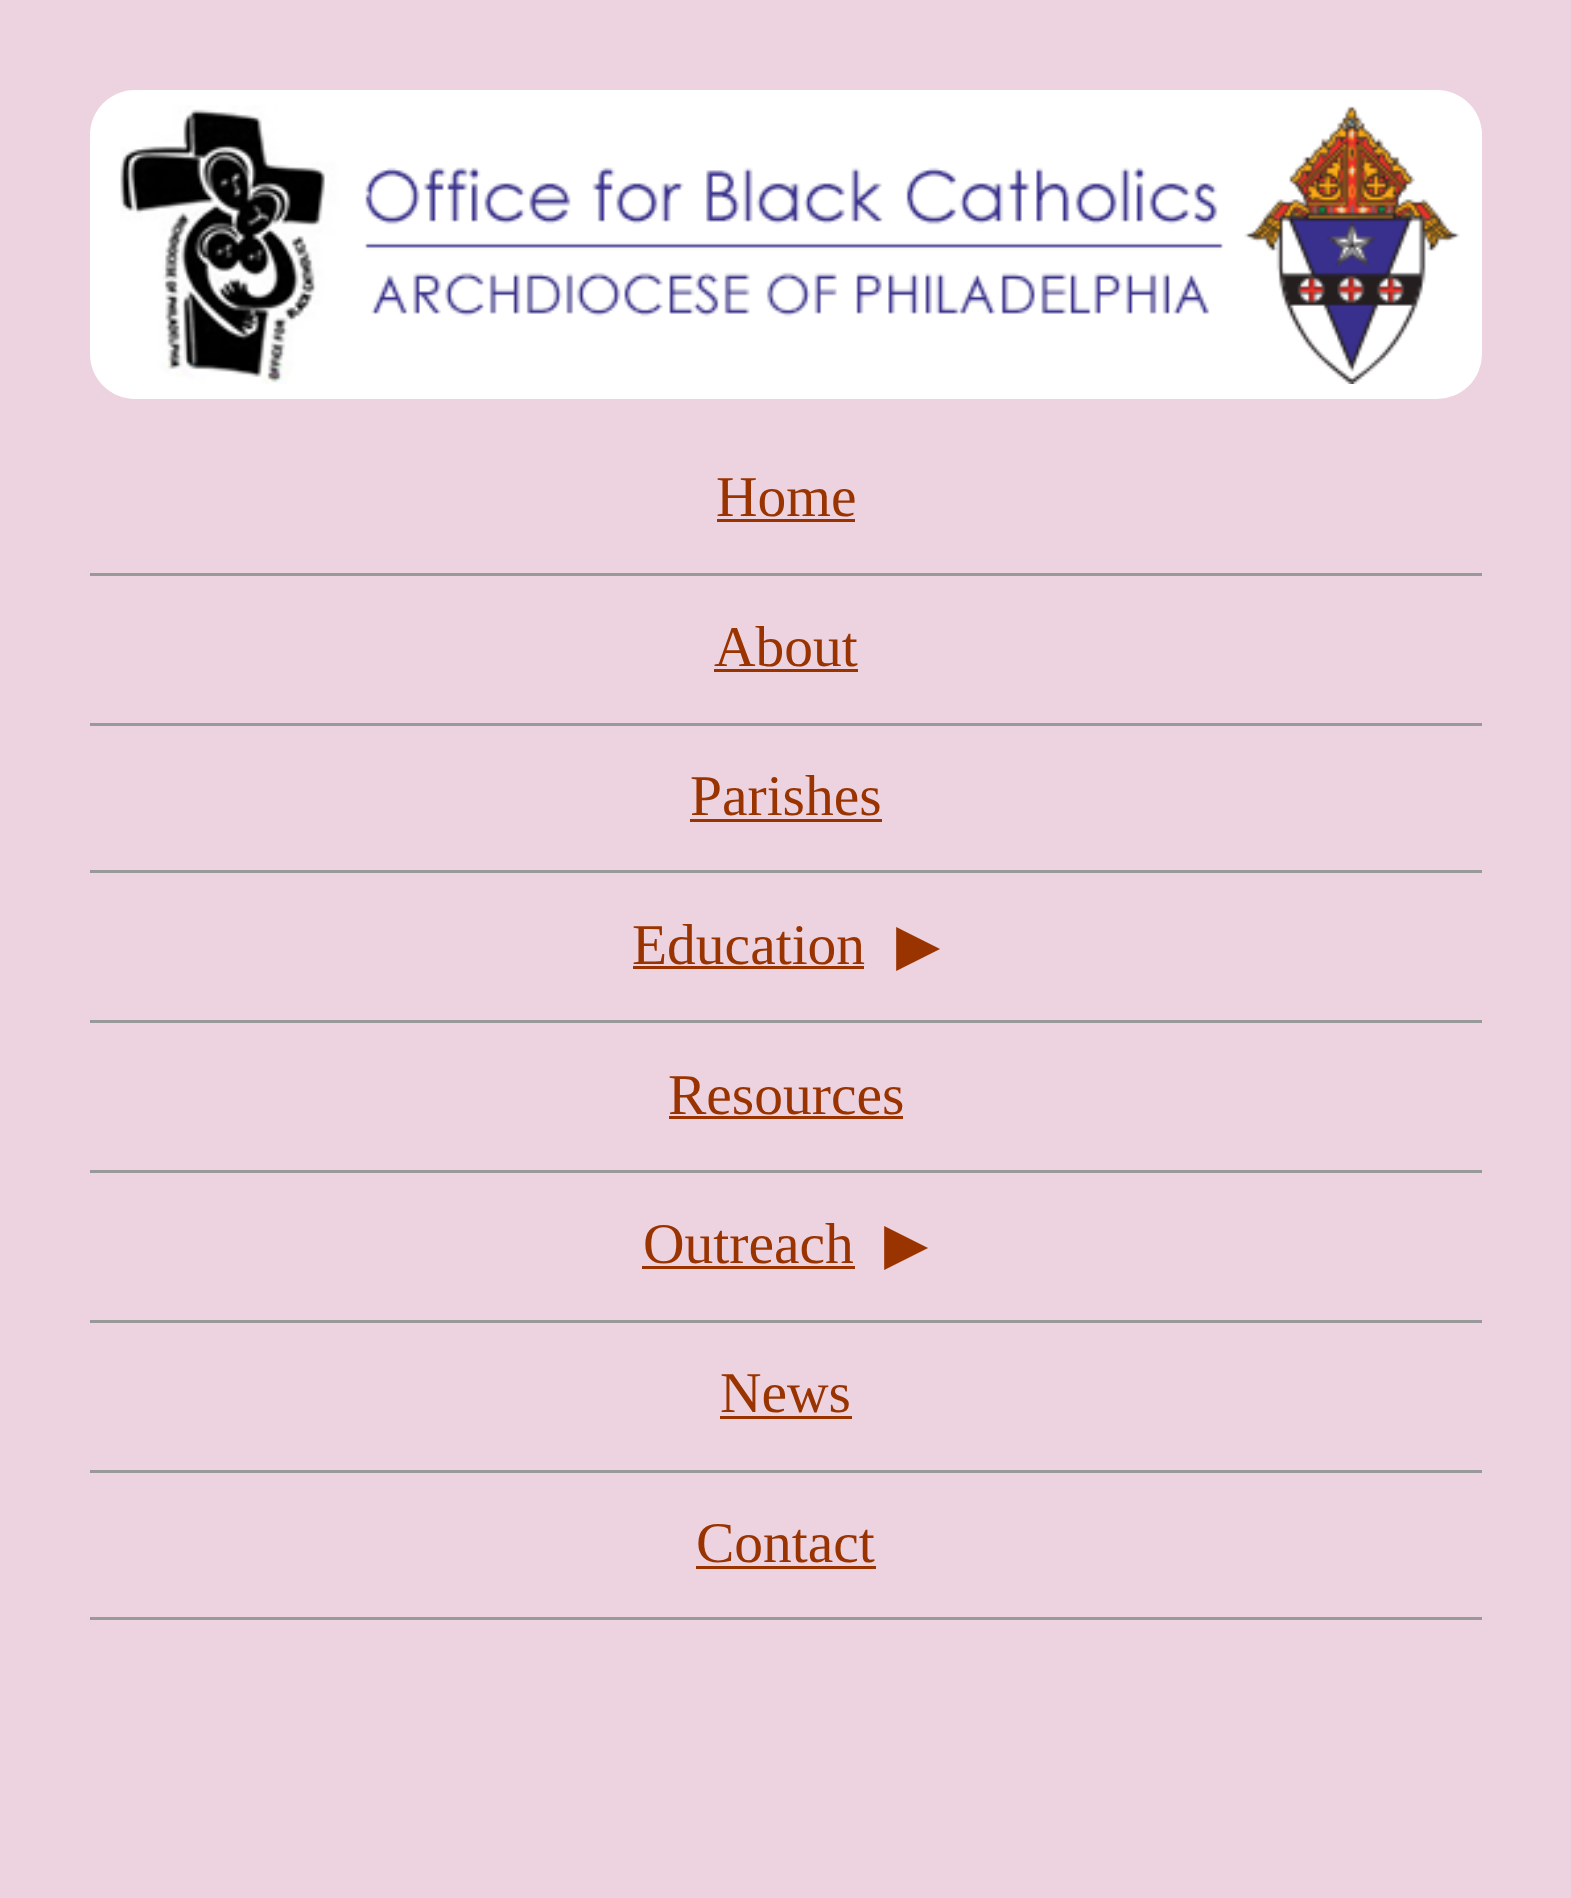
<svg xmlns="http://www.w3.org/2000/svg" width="1571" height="1898">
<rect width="100%" height="100%" fill="#edd3df"/>
<rect x="90" y="90" width="1392" height="309" rx="45" fill="#fff"/>
<image x="120" y="105" width="1340" height="279" href="media/1.png"/>
<rect x="90" y="573" width="1392" height="3" fill="#999"/>
<text x="716" y="516" style="font-family:Liberation Serif;font-size:57.5px;fill:#930">Home</text>
<rect x="717" y="519" width="138" height="3" fill="#930"/>
<rect x="90" y="723" width="1392" height="3" fill="#999"/>
<text x="714" y="666" style="font-family:Liberation Serif;font-size:57.5px;fill:#930">About</text>
<rect x="714" y="669" width="144" height="3" fill="#930"/>
<rect x="90" y="870" width="1392" height="3" fill="#999"/>
<text x="690" y="815" style="font-family:Liberation Serif;font-size:57.5px;fill:#930">Parishes</text>
<rect x="690" y="819" width="192" height="3" fill="#930"/>
<rect x="90" y="1020" width="1392" height="3" fill="#999"/>
<text x="632" y="964" style="font-family:Liberation Serif;font-size:57.5px;fill:#930">Education</text>
<rect x="633" y="966" width="231" height="3" fill="#930"/>
<text x="896" y="964" style="font-family:DejaVu Sans;font-size:57.5px;fill:#930">▶</text>
<rect x="90" y="1170" width="1392" height="3" fill="#999"/>
<text x="668" y="1114" style="font-family:Liberation Serif;font-size:57.5px;fill:#930">Resources</text>
<rect x="669" y="1116" width="234" height="3" fill="#930"/>
<rect x="90" y="1320" width="1392" height="3" fill="#999"/>
<text x="643" y="1263" style="font-family:Liberation Serif;font-size:57.5px;fill:#930">Outreach</text>
<rect x="642" y="1266" width="213" height="3" fill="#930"/>
<text x="884" y="1263" style="font-family:DejaVu Sans;font-size:57.5px;fill:#930">▶</text>
<rect x="90" y="1470" width="1392" height="3" fill="#999"/>
<text x="720" y="1412" style="font-family:Liberation Serif;font-size:57.5px;fill:#930">News</text>
<rect x="720" y="1416" width="132" height="3" fill="#930"/>
<rect x="90" y="1617" width="1392" height="3" fill="#999"/>
<text x="696" y="1562" style="font-family:Liberation Serif;font-size:57.5px;fill:#930">Contact</text>
<rect x="696" y="1566" width="180" height="3" fill="#930"/>
</svg>
